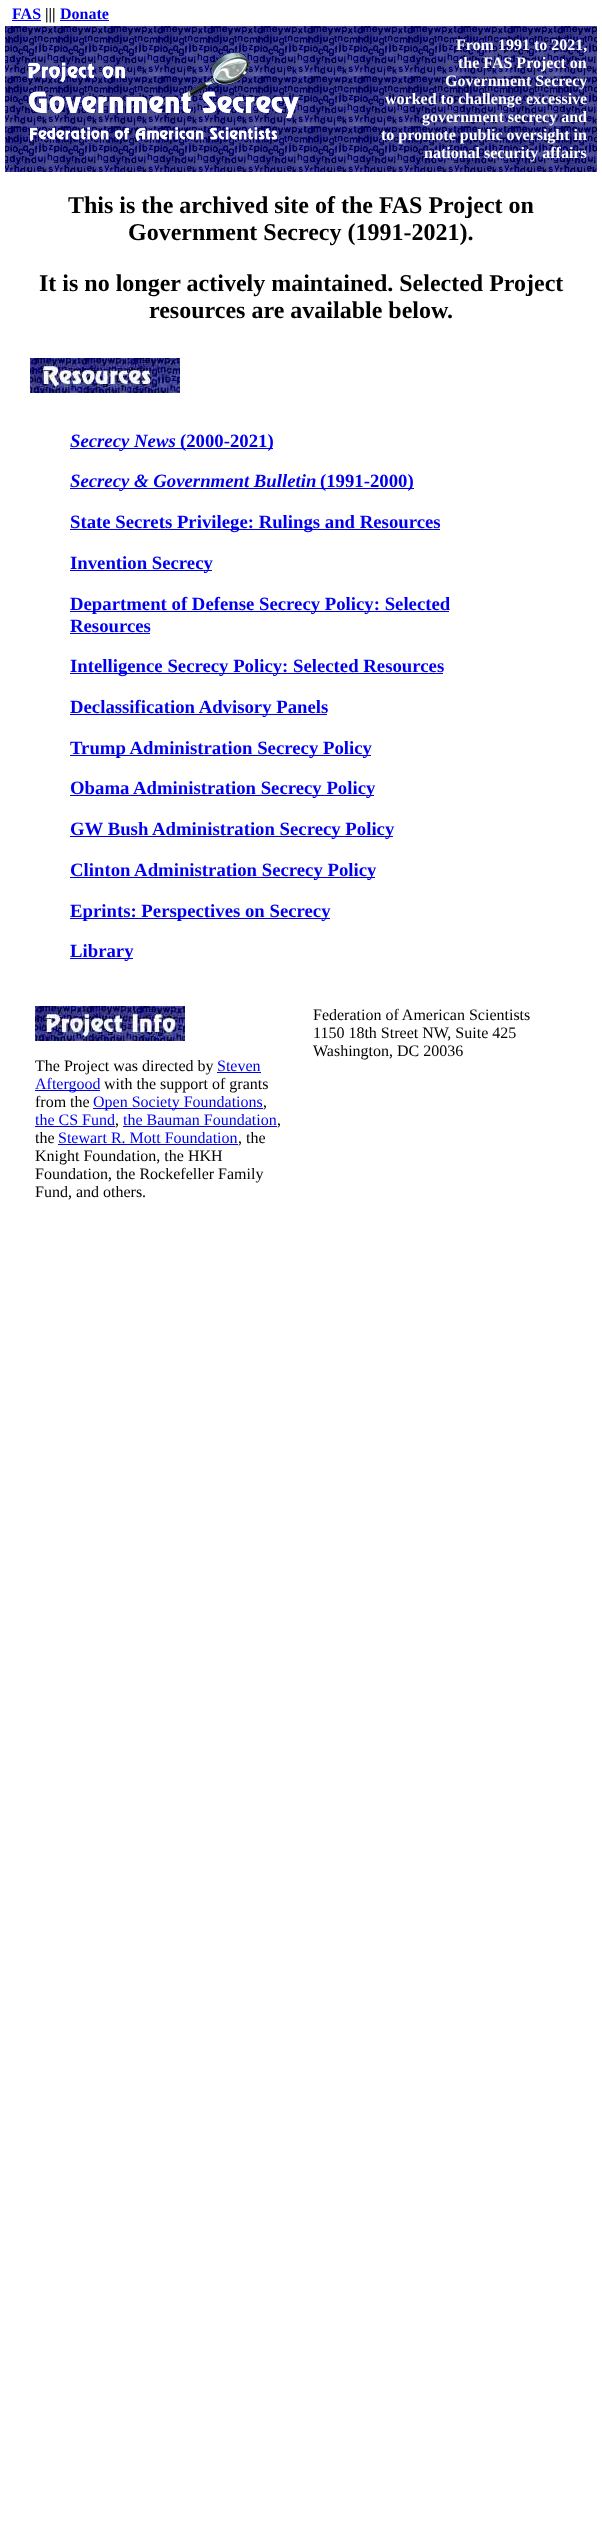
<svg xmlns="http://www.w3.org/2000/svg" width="602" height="2533">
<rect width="100%" height="100%" fill="#fff"/>
<text x="12" y="19" style="font-family:Liberation Serif;font-size:16px;font-weight:bold;fill:#00e">FAS</text>
<rect x="12" y="20" width="29" height="1" fill="#00e"/>
<text x="45" y="19" style="font-family:Liberation Serif;font-size:16px;font-weight:bold;fill:#000">|||</text>
<text x="60" y="19" style="font-family:Liberation Serif;font-size:16px;font-weight:bold;fill:#00e">Donate</text>
<rect x="60" y="20" width="49" height="1" fill="#00e"/>
<image x="5" y="26" width="592" height="146" href="media/1.png"/>
<image x="27" y="52" width="272" height="90" href="media/2.png"/>
<text x="456" y="50" style="font-family:Liberation Serif;font-size:16px;font-weight:bold;fill:#fff">From 1991 to 2021,</text>
<text x="458" y="68" style="font-family:Liberation Serif;font-size:16px;font-weight:bold;fill:#fff">the FAS Project on</text>
<text x="445" y="86" style="font-family:Liberation Serif;font-size:16px;font-weight:bold;fill:#fff">Government Secrecy</text>
<text x="385" y="104" style="font-family:Liberation Serif;font-size:16px;font-weight:bold;fill:#fff">worked to challenge excessive</text>
<text x="422" y="122" style="font-family:Liberation Serif;font-size:16px;font-weight:bold;fill:#fff">government secrecy and</text>
<text x="381" y="140" style="font-family:Liberation Serif;font-size:16px;font-weight:bold;fill:#fff">to promote public oversight in</text>
<text x="424" y="158" style="font-family:Liberation Serif;font-size:16px;font-weight:bold;fill:#fff">national security affairs</text>
<text x="68" y="213" style="font-family:Liberation Serif;font-size:24px;font-weight:bold;fill:#000">This is the archived site of the FAS Project on</text>
<text x="128" y="240" style="font-family:Liberation Serif;font-size:24px;font-weight:bold;fill:#000">Government Secrecy (1991-2021).</text>
<text x="39" y="291" style="font-family:Liberation Serif;font-size:24px;font-weight:bold;fill:#000">It is no longer actively maintained. Selected Project</text>
<text x="149" y="318" style="font-family:Liberation Serif;font-size:24px;font-weight:bold;fill:#000">resources are available below.</text>
<image x="30" y="358" width="150" height="35" href="media/3.png"/>
<rect x="70" y="448" width="203" height="1" fill="#00e"/>
<text x="70" y="447" style="font-family:Liberation Serif;font-size:18.75px;font-weight:bold;font-style:italic;fill:#00e">Secrecy News</text>
<text x="180" y="447" style="font-family:Liberation Serif;font-size:18.75px;font-weight:bold;fill:#00e">(2000-2021)</text>
<rect x="70" y="488" width="344" height="1" fill="#00e"/>
<text x="70" y="487" style="font-family:Liberation Serif;font-size:18.75px;font-weight:bold;font-style:italic;fill:#00e">Secrecy &amp; Government Bulletin</text>
<text x="320" y="487" style="font-family:Liberation Serif;font-size:18.75px;font-weight:bold;fill:#00e">(1991-2000)</text>
<rect x="70" y="529" width="370" height="1" fill="#00e"/>
<text x="70" y="528" style="font-family:Liberation Serif;font-size:18.75px;font-weight:bold;fill:#00e">State Secrets Privilege: Rulings and Resources</text>
<rect x="70" y="570" width="142" height="1" fill="#00e"/>
<text x="70" y="569" style="font-family:Liberation Serif;font-size:18.75px;font-weight:bold;fill:#00e">Invention Secrecy</text>
<rect x="70" y="611" width="379" height="1" fill="#00e"/>
<text x="70" y="610" style="font-family:Liberation Serif;font-size:18.75px;font-weight:bold;fill:#00e">Department of Defense Secrecy Policy: Selected</text>
<text x="70" y="632" style="font-family:Liberation Serif;font-size:18.75px;font-weight:bold;fill:#00e">Resources</text>
<rect x="70" y="633" width="80" height="1" fill="#00e"/>
<rect x="70" y="673" width="373" height="1" fill="#00e"/>
<text x="70" y="672" style="font-family:Liberation Serif;font-size:18.75px;font-weight:bold;fill:#00e">Intelligence Secrecy Policy: Selected Resources</text>
<rect x="70" y="714" width="257" height="1" fill="#00e"/>
<text x="70" y="713" style="font-family:Liberation Serif;font-size:18.75px;font-weight:bold;fill:#00e">Declassification Advisory Panels</text>
<rect x="70" y="755" width="301" height="1" fill="#00e"/>
<text x="70" y="754" style="font-family:Liberation Serif;font-size:18.75px;font-weight:bold;fill:#00e">Trump Administration Secrecy Policy</text>
<rect x="70" y="795" width="304" height="1" fill="#00e"/>
<text x="70" y="794" style="font-family:Liberation Serif;font-size:18.75px;font-weight:bold;fill:#00e">Obama Administration Secrecy Policy</text>
<rect x="70" y="836" width="323" height="1" fill="#00e"/>
<text x="70" y="835" style="font-family:Liberation Serif;font-size:18.75px;font-weight:bold;fill:#00e">GW Bush Administration Secrecy Policy</text>
<rect x="70" y="877" width="305" height="1" fill="#00e"/>
<text x="70" y="876" style="font-family:Liberation Serif;font-size:18.75px;font-weight:bold;fill:#00e">Clinton Administration Secrecy Policy</text>
<rect x="70" y="918" width="260" height="1" fill="#00e"/>
<text x="70" y="917" style="font-family:Liberation Serif;font-size:18.75px;font-weight:bold;fill:#00e">Eprints: Perspectives on Secrecy</text>
<rect x="70" y="958" width="63" height="1" fill="#00e"/>
<text x="70" y="957" style="font-family:Liberation Serif;font-size:18.75px;font-weight:bold;fill:#00e">Library</text>
<text x="313" y="1020" style="font-family:Liberation Serif;font-size:16px;fill:#000">Federation of American Scientists</text>
<text x="313" y="1038" style="font-family:Liberation Serif;font-size:16px;fill:#000">1150 18th Street NW, Suite 425</text>
<text x="313" y="1056" style="font-family:Liberation Serif;font-size:16px;fill:#000">Washington, DC 20036</text>
<image x="35" y="1006" width="150" height="35" href="media/4.png"/>
<text x="35" y="1071" style="font-family:Liberation Serif;font-size:16px;fill:#000">The Project was directed by</text>
<text x="217" y="1071" style="font-family:Liberation Serif;font-size:16px;fill:#00e">Steven</text>
<rect x="217" y="1072" width="44" height="1" fill="#00e"/>
<rect x="35" y="1090" width="65" height="1" fill="#00e"/>
<text x="35" y="1089" style="font-family:Liberation Serif;font-size:16px;fill:#00e">Aftergood</text>
<text x="104" y="1089" style="font-family:Liberation Serif;font-size:16px;fill:#000">with the support of grants</text>
<text x="35" y="1107" style="font-family:Liberation Serif;font-size:16px;fill:#000">from the</text>
<rect x="93" y="1108" width="170" height="1" fill="#00e"/>
<text x="93" y="1107" style="font-family:Liberation Serif;font-size:16px;fill:#00e">Open Society Foundations</text>
<text x="263" y="1107" style="font-family:Liberation Serif;font-size:16px;fill:#000">,</text>
<text x="35" y="1125" style="font-family:Liberation Serif;font-size:16px;fill:#00e">the CS Fund</text>
<rect x="35" y="1126" width="80" height="1" fill="#00e"/>
<text x="115" y="1125" style="font-family:Liberation Serif;font-size:16px;fill:#000">,</text>
<text x="123" y="1125" style="font-family:Liberation Serif;font-size:16px;fill:#00e">the Bauman Foundation</text>
<rect x="123" y="1126" width="154" height="1" fill="#00e"/>
<text x="277" y="1125" style="font-family:Liberation Serif;font-size:16px;fill:#000">,</text>
<text x="35" y="1143" style="font-family:Liberation Serif;font-size:16px;fill:#000">the</text>
<text x="58" y="1143" style="font-family:Liberation Serif;font-size:16px;fill:#00e">Stewart R. Mott Foundation</text>
<rect x="58" y="1144" width="180" height="1" fill="#00e"/>
<text x="238" y="1143" style="font-family:Liberation Serif;font-size:16px;fill:#000">, the</text>
<text x="35" y="1161" style="font-family:Liberation Serif;font-size:16px;fill:#000">Knight Foundation, the HKH</text>
<text x="35" y="1179" style="font-family:Liberation Serif;font-size:16px;fill:#000">Foundation, the Rockefeller Family</text>
<text x="35" y="1197" style="font-family:Liberation Serif;font-size:16px;fill:#000">Fund, and others.</text>
</svg>
